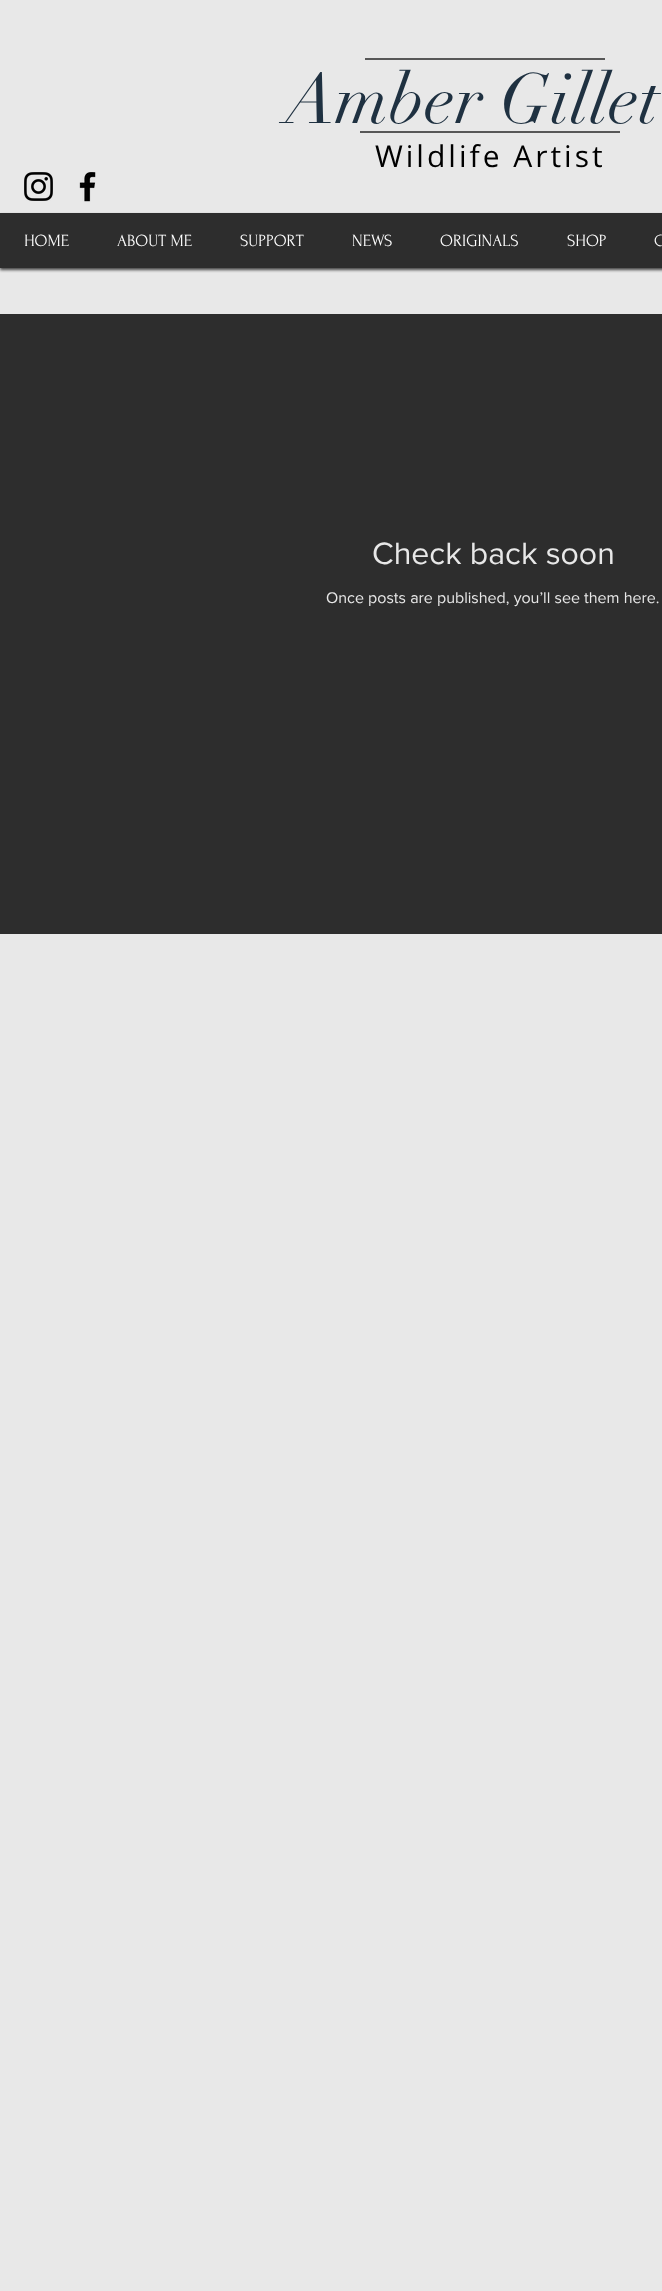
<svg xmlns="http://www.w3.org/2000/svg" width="662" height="2291">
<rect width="100%" height="100%" fill="#e8e8e8"/>
<text x="285" y="123" style="font-family:didot;font-size:70px;fill:#1f3141">Amber Gillet</text>
<rect x="365" y="58" width="240" height="2" fill="#575757"/>
<rect x="360" y="131" width="260" height="2" fill="#575757"/>
<text x="375" y="167" style="font-family:Open Sans;font-size:30px;letter-spacing:3px;fill:#000">Wildlife Artist</text>
<image x="24" y="172" width="29" height="29" href="media/1.png"/>
<image x="79" y="172" width="17" height="30" href="media/2.png"/>
<rect y="215" width="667" height="55" fill="#000000b3" filter="blur(1.5px)"/>
<rect y="213" width="662" height="55" fill="#2d2d2d"/>
<text x="24" y="246" style="font-family:Forum;font-size:17px;fill:#fff">HOME</text>
<text x="117" y="246" style="font-family:Forum;font-size:17px;fill:#fff">ABOUT ME</text>
<text x="240" y="246" style="font-family:Forum;font-size:17px;fill:#fff">SUPPORT</text>
<text x="352" y="246" style="font-family:Forum;font-size:17px;fill:#fff">NEWS</text>
<text x="440" y="246" style="font-family:Forum;font-size:17px;fill:#fff">ORIGINALS</text>
<text x="567" y="246" style="font-family:Forum;font-size:17px;fill:#fff">SHOP</text>
<text x="654" y="246" style="font-family:Forum;font-size:17px;fill:#fff">C</text>
<rect y="314" width="662" height="620" fill="#2d2d2d"/>
<text x="372" y="564" style="font-family:'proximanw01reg';font-size:32px;fill:#e8e8e8">Check back soon</text>
<text x="326" y="603" style="font-family:'proximanw01reg';font-size:16px;fill:#e8e8e8">Once posts are published, you’ll see them here.</text>
</svg>
